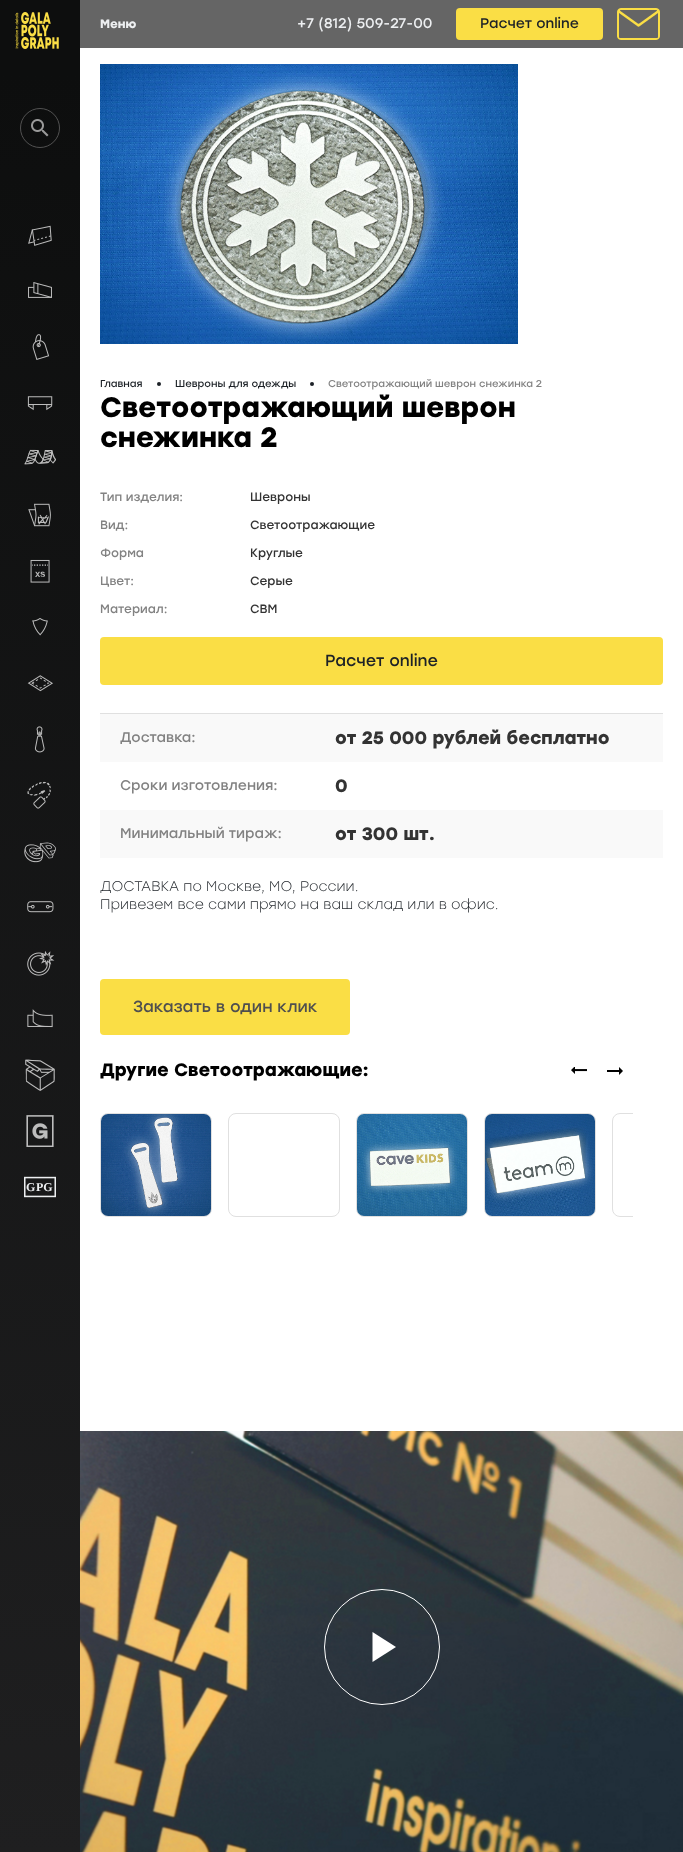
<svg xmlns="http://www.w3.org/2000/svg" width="683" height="1852">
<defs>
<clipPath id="clip1"><rect x="100" y="1113" width="533" height="104"/></clipPath>
<linearGradient id="g1" gradientUnits="userSpaceOnUse" x1="36" y1="-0.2" x2="44" y2="1852"><stop offset="0.04" stop-color="#0d0e0e"/><stop offset="1" stop-color="#1f1f20"/></linearGradient>
</defs>
<rect width="100%" height="100%" fill="#fff"/>
<rect x="80" width="603" height="48" fill="#656565"/>
<text x="100" y="28" style="font-family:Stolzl;font-size:12px;font-weight:bold;fill:#edeff1">Меню</text>
<text x="297" y="28" style="font-family:Stolzl;font-size:14px;fill:#edeff1">+7 (812) 509-27-00</text>
<rect x="456" y="8" width="147" height="32" rx="4" fill="#fade45"/>
<text x="480" y="28" style="font-family:Stolzl;font-size:14px;fill:#1d2227">Расчет online</text>
<image x="617" y="8" width="43" height="32" href="media/1.png"/>
<image x="100" y="64" width="418" height="280" href="media/2.png"/>
<text x="100" y="387" style="font-family:Stolzl;font-size:10px;fill:#1d2227">Главная</text>
<circle cx="159" cy="384" r="2" fill="#1d2227"/>
<text x="175" y="387" style="font-family:Stolzl;font-size:10px;fill:#1d2227">Шевроны для одежды</text>
<circle cx="312" cy="384" r="2" fill="#1d2227"/>
<text x="328" y="387" style="font-family:Stolzl;font-size:10px;fill:#828282">Светоотражающий шеврон снежинка 2</text>
<text x="100" y="417" style="font-family:Stolzl;font-size:28px;font-weight:bold;fill:#000">Светоотражающий шеврон</text>
<text x="100" y="447" style="font-family:Stolzl;font-size:28px;font-weight:bold;fill:#000">снежинка 2</text>
<text x="100" y="501" style="font-family:Stolzl;font-size:12px;fill:#828282">Тип изделия:</text>
<text x="250" y="501" style="font-family:Stolzl;font-size:12px;fill:#333">Шевроны</text>
<text x="100" y="529" style="font-family:Stolzl;font-size:12px;fill:#828282">Вид:</text>
<text x="250" y="529" style="font-family:Stolzl;font-size:12px;fill:#333">Светоотражающие</text>
<text x="100" y="557" style="font-family:Stolzl;font-size:12px;fill:#828282">Форма</text>
<text x="250" y="557" style="font-family:Stolzl;font-size:12px;fill:#333">Круглые</text>
<text x="100" y="585" style="font-family:Stolzl;font-size:12px;fill:#828282">Цвет:</text>
<text x="250" y="585" style="font-family:Stolzl;font-size:12px;fill:#333">Серые</text>
<text x="100" y="613" style="font-family:Stolzl;font-size:12px;fill:#828282">Материал:</text>
<text x="250" y="613" style="font-family:Stolzl;font-size:12px;fill:#333">СВМ</text>
<rect x="100" y="713" width="563" height="1" fill="#e0e0e0"/>
<rect x="100" y="637" width="563" height="48" rx="4" fill="#fade45"/>
<text x="325" y="666" style="font-family:Stolzl;font-size:16px;fill:#1d2227">Расчет online</text>
<rect x="100" y="714" width="563" height="48" fill="#f9f9f9"/>
<text x="120" y="742" style="font-family:Stolzl;font-size:14px;fill:#828282">Доставка:</text>
<text x="335" y="744" style="font-family:Stolzl;font-size:18px;font-weight:bold;fill:#333">от 25 000 рублей бесплатно</text>
<text x="120" y="790" style="font-family:Stolzl;font-size:14px;fill:#828282">Cроки изготовления:</text>
<text x="335" y="792" style="font-family:Stolzl;font-size:18px;font-weight:bold;fill:#333">0</text>
<rect x="100" y="810" width="563" height="48" fill="#f9f9f9"/>
<text x="120" y="838" style="font-family:Stolzl;font-size:14px;fill:#828282">Минимальный тираж:</text>
<text x="335" y="840" style="font-family:Stolzl;font-size:18px;font-weight:bold;fill:#333">от 300 шт.</text>
<text x="100" y="891" style="font-family:Stolzl;font-size:14px;font-weight:300;fill:#1d2227">ДОСТАВКА по Москве, МО, России.</text>
<text x="100" y="909" style="font-family:Stolzl;font-size:14px;font-weight:300;fill:#1d2227">Привезем все сами прямо на ваш склад или в офис.</text>
<rect x="100" y="979" width="250" height="56" rx="4" fill="#fade45"/>
<text x="133" y="1012" style="font-family:Stolzl;font-size:16px;fill:#4f4f4f">Заказать в один клик</text>
<text x="100" y="1076" style="font-family:Stolzl;font-size:18px;font-weight:bold;fill:#000">Другие Светоотражающие:</text>
<image x="571" y="1067" width="16" height="7" href="media/3.png"/>
<image x="607" y="1067" width="16" height="8" href="media/4.png"/>
<rect x="100.5" y="1113.5" width="111" height="103" rx="7.5" fill="none" stroke="#e0e0e0"/>
<image x="101" y="1114" width="110" height="102" href="media/5.png"/>
<rect x="228.5" y="1113.5" width="111" height="103" rx="7.5" fill="none" stroke="#e0e0e0"/>
<rect x="356.5" y="1113.5" width="111" height="103" rx="7.5" fill="none" stroke="#e0e0e0"/>
<image x="357" y="1114" width="110" height="102" href="media/6.png"/>
<rect x="484.5" y="1113.5" width="111" height="103" rx="7.5" fill="none" stroke="#e0e0e0"/>
<image x="485" y="1114" width="110" height="102" href="media/7.png"/>
<g clip-path="url(#clip1)">
<rect x="612.5" y="1113.5" width="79" height="103" rx="7.5" fill="none" stroke="#e0e0e0"/>
</g>
<image x="80" y="1431" width="603" height="421" href="media/8.png"/>
<circle cx="382" cy="1647" r="57.5" fill="none" stroke="#fff"/>
<path d="M372.5 1632v30l23.5-15z" fill="#fff"/>
<rect width="80" height="1852" fill="url(#g1)"/>
<image x="15" y="12" width="44" height="37" href="media/9.png"/>
<circle cx="40" cy="128" r="19.5" fill="none" stroke="#525252"/>
<image x="31" y="119" width="18" height="18" href="media/10.png"/>
<image x="28" y="225" width="24" height="21" href="media/11.png"/>
<image x="28" y="282" width="24" height="16" href="media/12.png"/>
<image x="32" y="334" width="18" height="26" href="media/13.png"/>
<image x="27" y="396" width="26" height="15" href="media/14.png"/>
<image x="24" y="449" width="32" height="16" href="media/15.png"/>
<image x="28" y="503" width="23" height="24" href="media/16.png"/>
<image x="30" y="559" width="20" height="24" href="media/17.png"/>
<image x="32" y="618" width="16" height="18" href="media/18.png"/>
<image x="27" y="675" width="26" height="17" href="media/19.png"/>
<image x="34" y="726" width="11" height="27" href="media/20.png"/>
<image x="27" y="781" width="24" height="28" href="media/21.png"/>
<image x="24" y="842" width="32" height="21" href="media/22.png"/>
<image x="27" y="901" width="27" height="12" href="media/23.png"/>
<image x="27" y="951" width="28" height="25" href="media/24.png"/>
<image x="27" y="1009" width="26" height="19" href="media/25.png"/>
<image x="25" y="1059" width="30" height="32" href="media/26.png"/>
<image x="26" y="1115" width="28" height="32" href="media/27.png"/>
<image x="24" y="1176" width="32" height="22" href="media/28.png"/>
<text x="26" y="1191" style="font-family:Liberation Serif;font-size:12px;font-weight:bold;fill:#edeff1">G</text>
<text x="36" y="1191" style="font-family:Liberation Serif;font-size:12px;font-weight:bold;fill:#edeff1">PG</text>
</svg>
